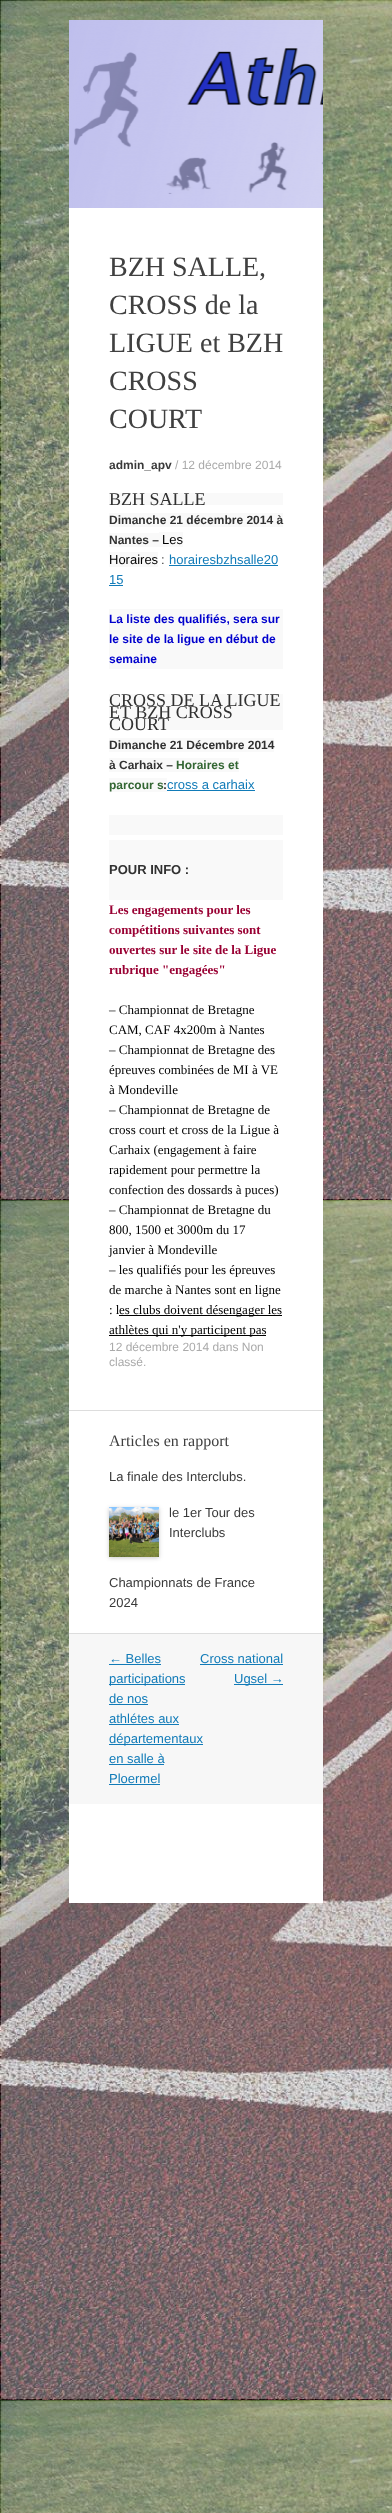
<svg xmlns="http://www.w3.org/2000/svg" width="392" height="2513">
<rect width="100%" height="100%" fill="#fff"/>
<image x="0" y="0" width="392" height="2513" href="media/1.png"/>
<rect x="69" y="208" width="254" height="1695" fill="#fff"/>
<image x="69" y="20" width="254" height="188" href="media/2.png"/>
<rect x="69" y="1410" width="254" height="1" fill="#ddd"/>
<text x="109" y="276" style="font-family:Liberation Serif;font-size:28px;fill:#404040">BZH SALLE,</text>
<text x="109" y="314" style="font-family:Liberation Serif;font-size:28px;fill:#404040">CROSS de la</text>
<text x="109" y="352" style="font-family:Liberation Serif;font-size:28px;fill:#404040">LIGUE et BZH</text>
<text x="109" y="390" style="font-family:Liberation Serif;font-size:28px;fill:#404040">CROSS</text>
<text x="109" y="428" style="font-family:Liberation Serif;font-size:28px;fill:#404040">COURT</text>
<text x="109" y="469" style="font-family:Liberation Sans;font-size:12px;font-weight:bold;fill:#3a3a3a">admin_apv</text>
<text x="175" y="469" style="font-family:Liberation Sans;font-size:12px;fill:#aaa">/ 12 décembre 2014</text>
<rect x="109" y="493" width="174" height="12" fill="#f9f9f9"/>
<text x="109" y="505" style="font-family:Liberation Serif;font-size:18px;fill:#313131">BZH SALLE</text>
<rect x="109" y="513" width="174" height="14" fill="#f9f9f9"/>
<text x="109" y="524" style="font-family:Liberation Sans;font-size:12px;font-weight:bold;fill:#313131">Dimanche 21 décembre 2014 à</text>
<rect x="109" y="533" width="50" height="14" fill="#f9f9f9"/>
<text x="109" y="544" style="font-family:Liberation Sans;font-size:12px;font-weight:bold;fill:#313131">Nantes –</text>
<rect x="159" y="532" width="24" height="15" fill="#f9f9f9"/>
<text x="162" y="544" style="font-family:Liberation Sans;font-size:13px;fill:#000">Les</text>
<rect x="109" y="552" width="49" height="15" fill="#f9f9f9"/>
<text x="109" y="564" style="font-family:Liberation Sans;font-size:13px;fill:#000">Horaires</text>
<text x="161" y="564" style="font-family:Liberation Sans;font-size:13px;fill:#404040">:</text>
<text x="169" y="564" style="font-family:Liberation Sans;font-size:13px;fill:#117bb8">horairesbzhsalle20</text>
<rect x="169" y="565" width="109" height="1" fill="#117bb8"/>
<text x="109" y="584" style="font-family:Liberation Sans;font-size:13px;fill:#117bb8">15</text>
<rect x="109" y="585" width="14" height="1" fill="#117bb8"/>
<rect x="109" y="609" width="174" height="60" fill="#f9f9f9"/>
<text x="109" y="623" style="font-family:Liberation Sans;font-size:12px;font-weight:bold;fill:#0000cd">La liste des qualifiés, sera sur</text>
<text x="109" y="643" style="font-family:Liberation Sans;font-size:12px;font-weight:bold;fill:#0000cd">le site de la ligue en début de</text>
<text x="109" y="663" style="font-family:Liberation Sans;font-size:12px;font-weight:bold;fill:#0000cd">semaine</text>
<rect x="109" y="694" width="174" height="36" fill="#f9f9f9"/>
<text x="109" y="706" style="font-family:Liberation Serif;font-size:18px;fill:#313131">CROSS DE LA LIGUE</text>
<text x="109" y="718" style="font-family:Liberation Serif;font-size:18px;fill:#313131">ET BZH CROSS</text>
<text x="109" y="730" style="font-family:Liberation Serif;font-size:18px;fill:#313131">COURT</text>
<rect x="109" y="738" width="165" height="14" fill="#f9f9f9"/>
<text x="109" y="749" style="font-family:Liberation Sans;font-size:12px;font-weight:bold;fill:#313131">Dimanche 21 Décembre 2014</text>
<rect x="109" y="758" width="130" height="14" fill="#f9f9f9"/>
<text x="109" y="769" style="font-family:Liberation Sans;font-size:12px;font-weight:bold;fill:#313131">à Carhaix –</text>
<text x="176" y="769" style="font-family:Liberation Sans;font-size:12px;font-weight:bold;fill:#363">Horaires et</text>
<rect x="109" y="778" width="58" height="14" fill="#f9f9f9"/>
<text x="109" y="789" style="font-family:Liberation Sans;font-size:12px;font-weight:bold;fill:#363">parcour s</text>
<text x="163" y="789" style="font-family:Liberation Sans;font-size:12px;font-weight:bold;fill:#313131">:</text>
<text x="167" y="789" style="font-family:Liberation Sans;font-size:13px;fill:#117bb8">cross a carhaix</text>
<rect x="167" y="790" width="88" height="1" fill="#117bb8"/>
<rect x="109" y="815" width="174" height="20" fill="#f9f9f9"/>
<rect x="109" y="840" width="174" height="60" fill="#f9f9f9"/>
<text x="109" y="874" style="font-family:Liberation Sans;font-size:13px;font-weight:bold;fill:#313131">POUR INFO :</text>
<text x="109" y="914" style="font-family:Liberation Serif;font-size:13px;font-weight:bold;fill:#903">Les engagements pour les</text>
<text x="109" y="934" style="font-family:Liberation Serif;font-size:13px;font-weight:bold;fill:#903">compétitions suivantes sont</text>
<text x="109" y="954" style="font-family:Liberation Serif;font-size:13px;font-weight:bold;fill:#903">ouvertes sur le site de la Ligue</text>
<text x="109" y="974" style="font-family:Liberation Serif;font-size:13px;font-weight:bold;fill:#903">rubrique "engagées"</text>
<text x="109" y="1014" style="font-family:Liberation Serif;font-size:13px;fill:#000">– Championnat de Bretagne</text>
<text x="109" y="1034" style="font-family:Liberation Serif;font-size:13px;fill:#000">CAM, CAF 4x200m à Nantes</text>
<text x="109" y="1054" style="font-family:Liberation Serif;font-size:13px;fill:#000">– Championnat de Bretagne des</text>
<text x="109" y="1074" style="font-family:Liberation Serif;font-size:13px;fill:#000">épreuves combinées de MI à VE</text>
<text x="109" y="1094" style="font-family:Liberation Serif;font-size:13px;fill:#000">à Mondeville</text>
<text x="109" y="1114" style="font-family:Liberation Serif;font-size:13px;fill:#000">– Championnat de Bretagne de</text>
<text x="109" y="1134" style="font-family:Liberation Serif;font-size:13px;fill:#000">cross court et cross de la Ligue à</text>
<text x="109" y="1154" style="font-family:Liberation Serif;font-size:13px;fill:#000">Carhaix (engagement à faire</text>
<text x="109" y="1174" style="font-family:Liberation Serif;font-size:13px;fill:#000">rapidement pour permettre la</text>
<text x="109" y="1194" style="font-family:Liberation Serif;font-size:13px;fill:#000">confection des dossards à puces)</text>
<text x="109" y="1214" style="font-family:Liberation Serif;font-size:13px;fill:#000">– Championnat de Bretagne du</text>
<text x="109" y="1234" style="font-family:Liberation Serif;font-size:13px;fill:#000">800, 1500 et 3000m du 17</text>
<text x="109" y="1254" style="font-family:Liberation Serif;font-size:13px;fill:#000">janvier à Mondeville</text>
<text x="109" y="1274" style="font-family:Liberation Serif;font-size:13px;fill:#000">– les qualifiés pour les épreuves</text>
<text x="109" y="1294" style="font-family:Liberation Serif;font-size:13px;fill:#000">de marche à Nantes sont en ligne</text>
<text x="109" y="1314" style="font-family:Liberation Serif;font-size:13px;fill:#000">: l</text>
<rect x="119" y="1315" width="163" height="1" fill="#000"/>
<text x="119" y="1314" style="font-family:Liberation Serif;font-size:13px;fill:#000">es clubs doivent désengager les</text>
<rect x="109" y="1335" width="157" height="1" fill="#000"/>
<text x="109" y="1334" style="font-family:Liberation Serif;font-size:13px;fill:#000">athlètes qui n'y participent pas</text>
<text x="109" y="1351" style="font-family:Liberation Sans;font-size:12px;fill:#aaa">12 décembre 2014 dans Non</text>
<text x="109" y="1366" style="font-family:Liberation Sans;font-size:12px;fill:#aaa">classé.</text>
<rect x="69" y="1633" width="254" height="1" fill="#ddd"/>
<text x="109" y="1446" style="font-family:Liberation Serif;font-size:16px;fill:#404040">Articles en rapport</text>
<text x="109" y="1481" style="font-family:Liberation Sans;font-size:13px;fill:#3a3a3a">La finale des Interclubs.</text>
<rect x="109" y="1508" width="50" height="50" fill="#00000033" filter="blur(2px)"/>
<image x="109" y="1507" width="50" height="50" href="media/3.png"/>
<text x="169" y="1517" style="font-family:Liberation Sans;font-size:13px;fill:#3a3a3a">le 1er Tour des</text>
<text x="169" y="1537" style="font-family:Liberation Sans;font-size:13px;fill:#3a3a3a">Interclubs</text>
<text x="109" y="1587" style="font-family:Liberation Sans;font-size:13px;fill:#3a3a3a">Championnats de France</text>
<text x="109" y="1607" style="font-family:Liberation Sans;font-size:13px;fill:#3a3a3a">2024</text>
<rect x="69" y="1634" width="254" height="170" fill="#f7f7f7"/>
<text x="109" y="1663" style="font-family:Liberation Sans;font-size:13px;fill:#117bb8">← Belles</text>
<rect x="109" y="1664" width="52" height="1" fill="#117bb8"/>
<rect x="109" y="1684" width="76" height="1" fill="#117bb8"/>
<text x="109" y="1683" style="font-family:Liberation Sans;font-size:13px;fill:#117bb8">participations</text>
<text x="109" y="1703" style="font-family:Liberation Sans;font-size:13px;fill:#117bb8">de nos</text>
<rect x="109" y="1704" width="39" height="1" fill="#117bb8"/>
<text x="109" y="1723" style="font-family:Liberation Sans;font-size:13px;fill:#117bb8">athlétes aux</text>
<rect x="109" y="1724" width="70" height="1" fill="#117bb8"/>
<rect x="109" y="1744" width="94" height="1" fill="#117bb8"/>
<text x="109" y="1743" style="font-family:Liberation Sans;font-size:13px;fill:#117bb8">départementaux</text>
<text x="109" y="1763" style="font-family:Liberation Sans;font-size:13px;fill:#117bb8">en salle à</text>
<rect x="109" y="1764" width="55" height="1" fill="#117bb8"/>
<text x="109" y="1783" style="font-family:Liberation Sans;font-size:13px;fill:#117bb8">Ploermel</text>
<rect x="109" y="1784" width="51" height="1" fill="#117bb8"/>
<text x="200" y="1663" style="font-family:Liberation Sans;font-size:13px;fill:#117bb8">Cross national</text>
<rect x="200" y="1664" width="83" height="1" fill="#117bb8"/>
<rect x="234" y="1684" width="49" height="1" fill="#117bb8"/>
<text x="234" y="1683" style="font-family:Liberation Sans;font-size:13px;fill:#117bb8">Ugsel →</text>
</svg>
